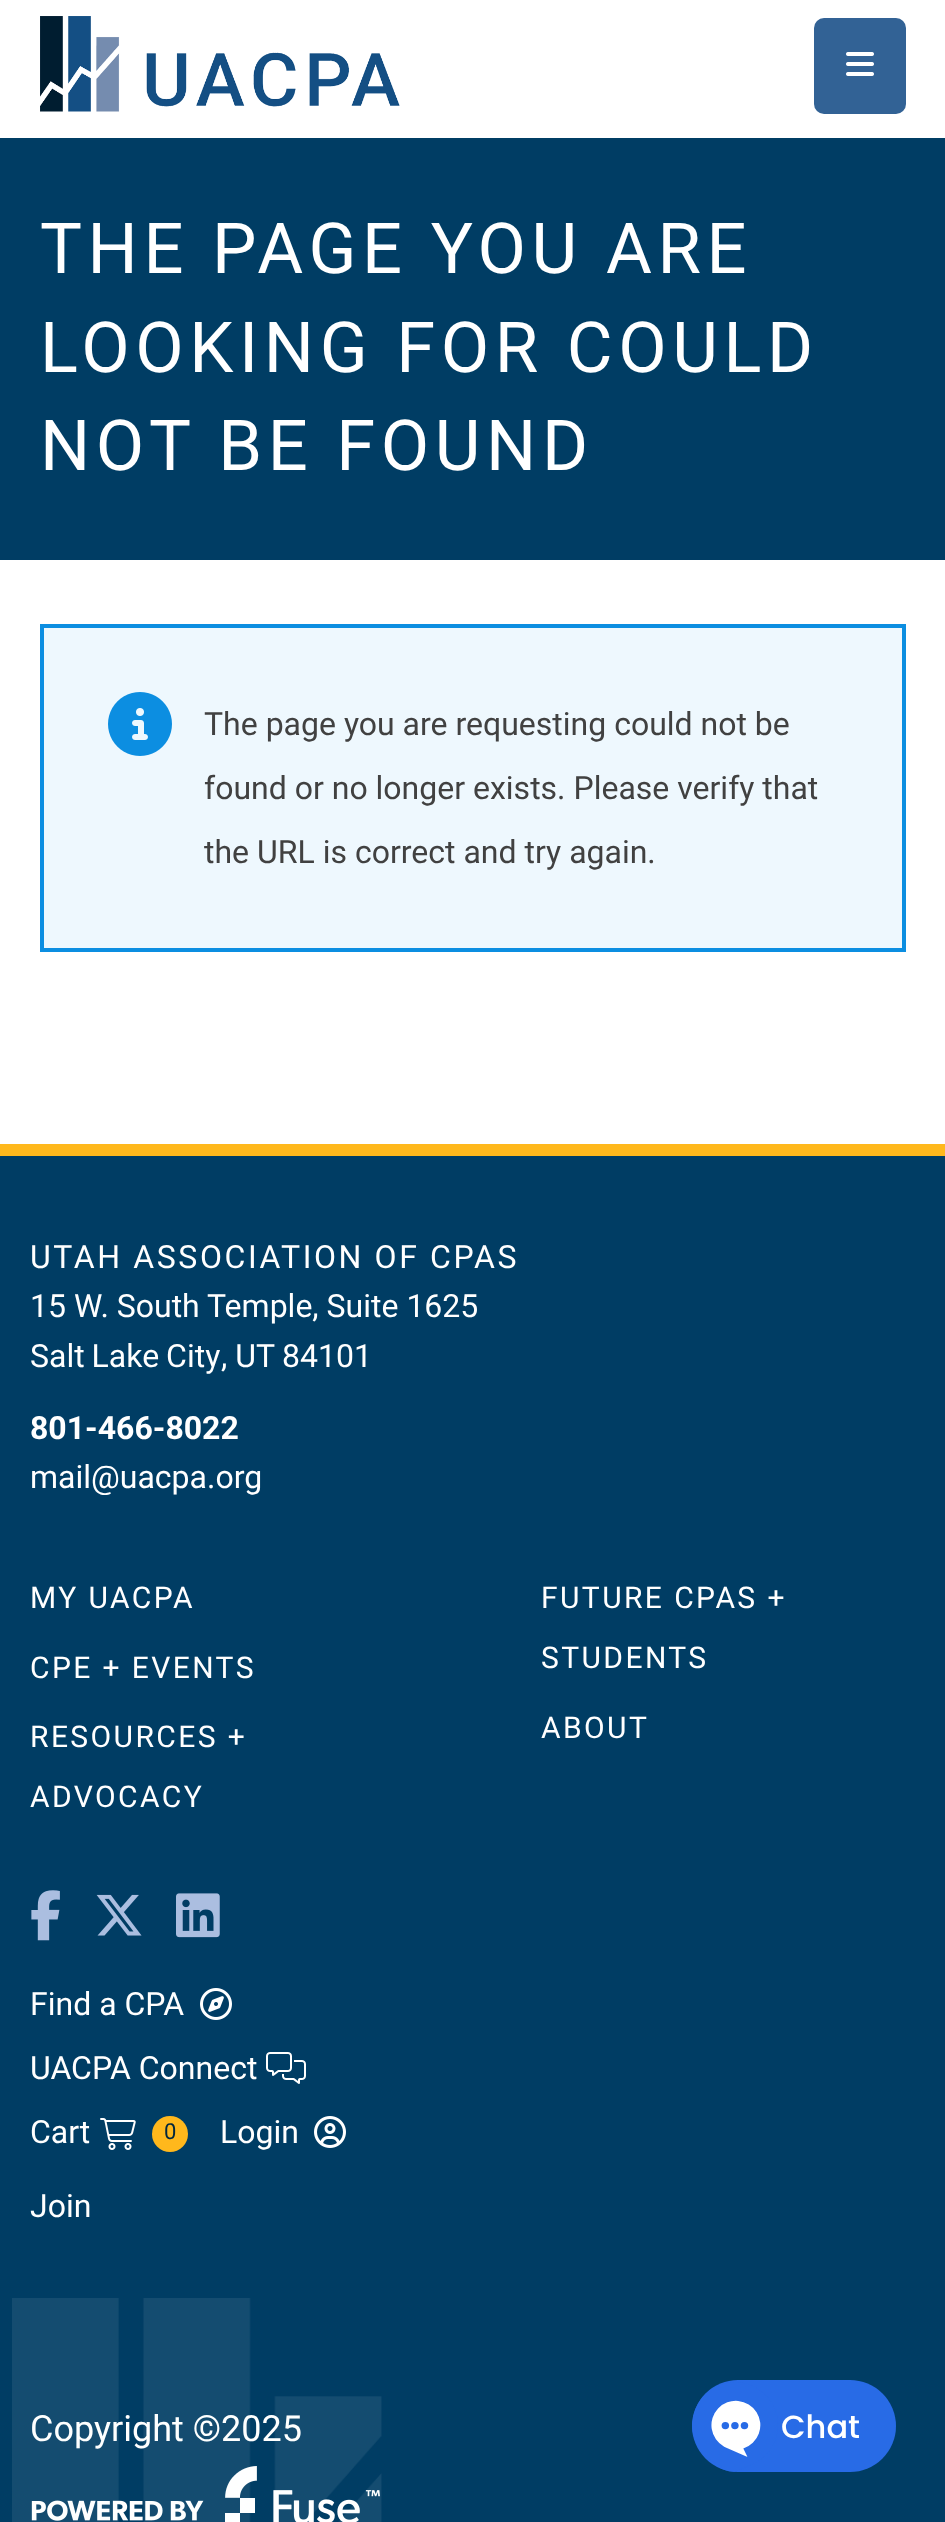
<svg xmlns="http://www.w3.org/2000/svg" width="945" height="2522">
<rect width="100%" height="100%" fill="#fff"/>
<image x="40" y="16" width="360" height="96" href="media/1.png"/>
<rect x="814" y="18" width="92" height="96" rx="10" fill="#326295"/>
<image x="846" y="52" width="28" height="24" href="media/2.png"/>
<rect y="138" width="945" height="422" fill="#003d64"/>
<text x="40" y="273" style="font-family:Roboto;font-size:70.4px;letter-spacing:5.6px;fill:#fff">THE PAGE YOU ARE</text>
<text x="40" y="372" style="font-family:Roboto;font-size:70.4px;letter-spacing:5.6px;fill:#fff">LOOKING FOR COULD</text>
<text x="40" y="470" style="font-family:Roboto;font-size:70.4px;letter-spacing:5.6px;fill:#fff">NOT BE FOUND</text>
<rect x="42" y="626" width="862" height="324" fill="#eef8fe" stroke="#0c8ee1" stroke-width="4"/>
<image x="108" y="692" width="64" height="64" href="media/3.png"/>
<text x="204" y="735" style="font-family:Roboto;font-size:32px;fill:#414141">The page you are requesting could not be</text>
<text x="204" y="799" style="font-family:Roboto;font-size:32px;fill:#414141">found or no longer exists. Please verify that</text>
<text x="204" y="863" style="font-family:Roboto;font-size:32px;fill:#414141">the URL is correct and try again.</text>
<rect y="1156" width="945" height="1366" fill="#003d64"/>
<rect y="1144" width="945" height="12" fill="#ffb81c"/>
<text x="30" y="1268" style="font-family:Roboto;font-size:32px;letter-spacing:2.6px;fill:#fff">UTAH ASSOCIATION OF CPAS</text>
<text x="30" y="1317" style="font-family:Roboto;font-size:32px;fill:#fff">15 W. South Temple, Suite 1625</text>
<text x="30" y="1367" word-spacing="-1" style="font-family:Roboto;font-size:32px;fill:#fff">Salt Lake City</text>
<text x="221" y="1367" style="font-family:Roboto;font-size:32px;fill:#fff">, UT</text>
<text x="282" y="1367" style="font-family:Roboto;font-size:32px;fill:#fff">84101</text>
<text x="30" y="1439" style="font-family:Roboto;font-size:32px;font-weight:bold;fill:#fff">801-466-8022</text>
<text x="30" y="1488" style="font-family:Roboto;font-size:32px;fill:#fff">mail@uacpa.org</text>
<text x="30" y="1608" style="font-family:Roboto;font-size:30px;letter-spacing:2.4px;fill:#fff">MY UACPA</text>
<text x="541" y="1608" style="font-family:Roboto;font-size:30px;letter-spacing:2.4px;fill:#fff">FUTURE CPAS +</text>
<text x="541" y="1668" style="font-family:Roboto;font-size:30px;letter-spacing:2.4px;fill:#fff">STUDENTS</text>
<text x="30" y="1678" style="font-family:Roboto;font-size:30px;letter-spacing:2.4px;fill:#fff">CPE + EVENTS</text>
<text x="30" y="1747" style="font-family:Roboto;font-size:30px;letter-spacing:2.4px;fill:#fff">RESOURCES +</text>
<text x="30" y="1807" style="font-family:Roboto;font-size:30px;letter-spacing:2.4px;fill:#fff">ADVOCACY</text>
<text x="541" y="1738" style="font-family:Roboto;font-size:30px;letter-spacing:2.4px;fill:#fff">ABOUT</text>
<image x="31" y="1890" width="29" height="51" href="media/4.png"/>
<image x="96" y="1894" width="46" height="42" href="media/5.png"/>
<image x="176" y="1893" width="44" height="45" href="media/6.png"/>
<text x="30" y="2015" style="font-family:Roboto;font-size:32px;fill:#fff">Find a CPA</text>
<image x="200" y="1988" width="32" height="32" href="media/7.png"/>
<text x="30" y="2079" style="font-family:Roboto;font-size:32px;fill:#fff">UACPA Connect</text>
<image x="266" y="2052" width="40" height="32" href="media/8.png"/>
<text x="30" y="2143" style="font-family:Roboto;font-size:32px;fill:#fff">Cart</text>
<image x="100" y="2118" width="36" height="32" href="media/9.png"/>
<circle cx="170" cy="2134" r="18" fill="#ffb81c"/>
<text x="164" y="2139" style="font-family:Roboto;font-size:22px;fill:#00263e">0</text>
<text x="220" y="2143" style="font-family:Roboto;font-size:32px;fill:#fff">Login</text>
<image x="314" y="2116" width="32" height="32" href="media/10.png"/>
<text x="30" y="2217" style="font-family:Roboto;font-size:32px;fill:#fff">Join</text>
<text x="30" y="2441" style="font-family:Roboto;font-size:36px;fill:#fff">Copyright ©2025</text>
<image x="31" y="2466" width="349" height="56" href="media/12.png"/>
<image x="12" y="2298" width="370" height="224" href="media/11.png"/>
<image x="692" y="2380" width="204" height="92" href="media/13.png"/>
</svg>
